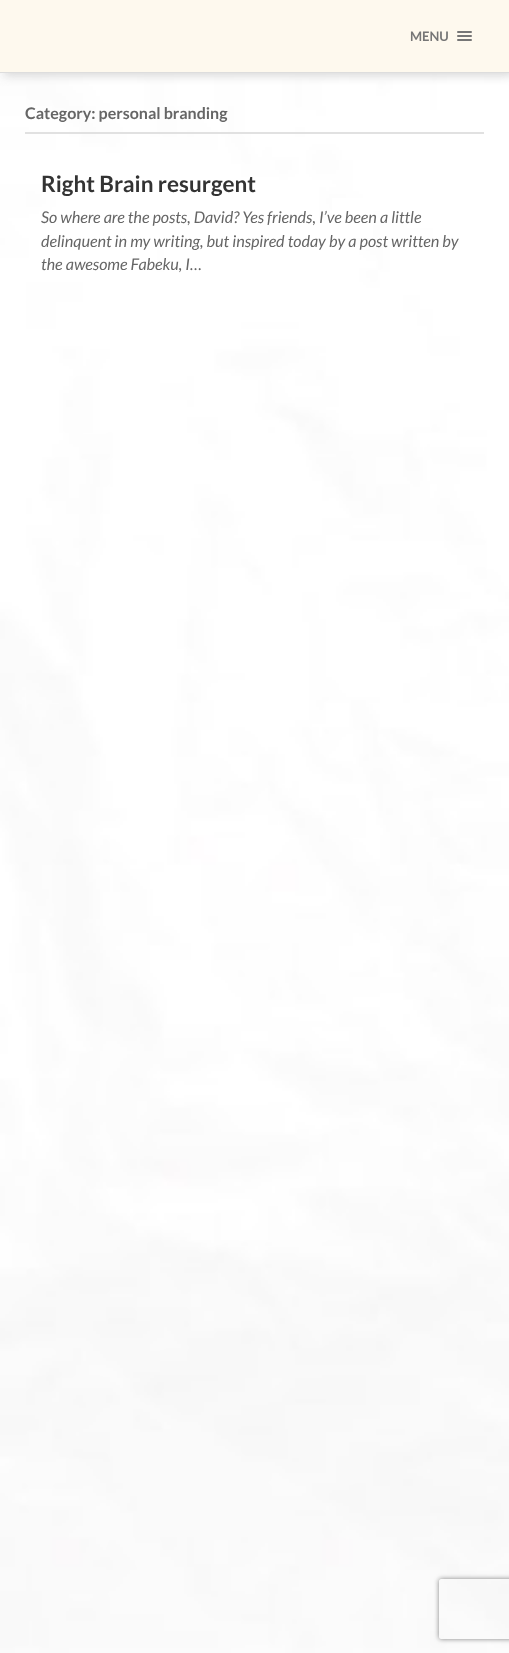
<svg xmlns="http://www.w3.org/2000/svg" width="509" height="1653">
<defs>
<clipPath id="clip1"><path d="M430 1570h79v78h-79zm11 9h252c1 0 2 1 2 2v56c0 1-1 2-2 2h-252c-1 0-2-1-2-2v-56c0-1 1-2 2-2z" clip-rule="evenodd"/></clipPath>
</defs>
<rect width="100%" height="100%" fill="#fff"/>
<image x="0" y="73" width="509" height="1580" href="media/1.png"/>
<rect x="4" y="3" width="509" height="73" fill="#d9d9d9" filter="blur(5px)"/>
<rect width="509" height="72" fill="#fef9ee"/>
<rect y="72" width="509" height="1" fill="#ddd"/>
<text x="410" y="41" style="font-family:Lato;font-size:13px;font-weight:bold;fill:#767676">MENU</text>
<rect x="457" y="31" width="15" height="2" rx="1" fill="#767676"/>
<rect x="457" y="35" width="15" height="2" rx="1" fill="#767676"/>
<rect x="457" y="39" width="15" height="2" rx="1" fill="#767676"/>
<rect x="25" y="132" width="459" height="2" fill="#e1e1e1"/>
<text x="25" y="119" style="font-family:Lato;font-size:16px;font-weight:bold;fill:#666">Category: personal branding</text>
<rect x="332" y="198" width="41" height="40" fill="#fff"/>
<text x="41" y="192" style="font-family:Lato;font-size:22.5px;font-weight:bold;fill:#333">Right Brain resurgent</text>
<text x="41" y="223" style="font-family:Lato;font-size:16.2px;font-style:italic;fill:#666">So where are the posts, David? Yes friends, I’ve been a little</text>
<text x="41" y="247" style="font-family:Lato;font-size:16.2px;font-style:italic;fill:#666">delinquent in my writing, but inspired today by a post written by</text>
<text x="41" y="270" style="font-family:Lato;font-size:16.2px;font-style:italic;fill:#666">the awesome Fabeku, I…</text>
<g clip-path="url(#clip1)">
<rect x="439" y="1579" width="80" height="60" rx="2" fill="#808080" filter="blur(2.5px)"/>
</g>
</svg>
